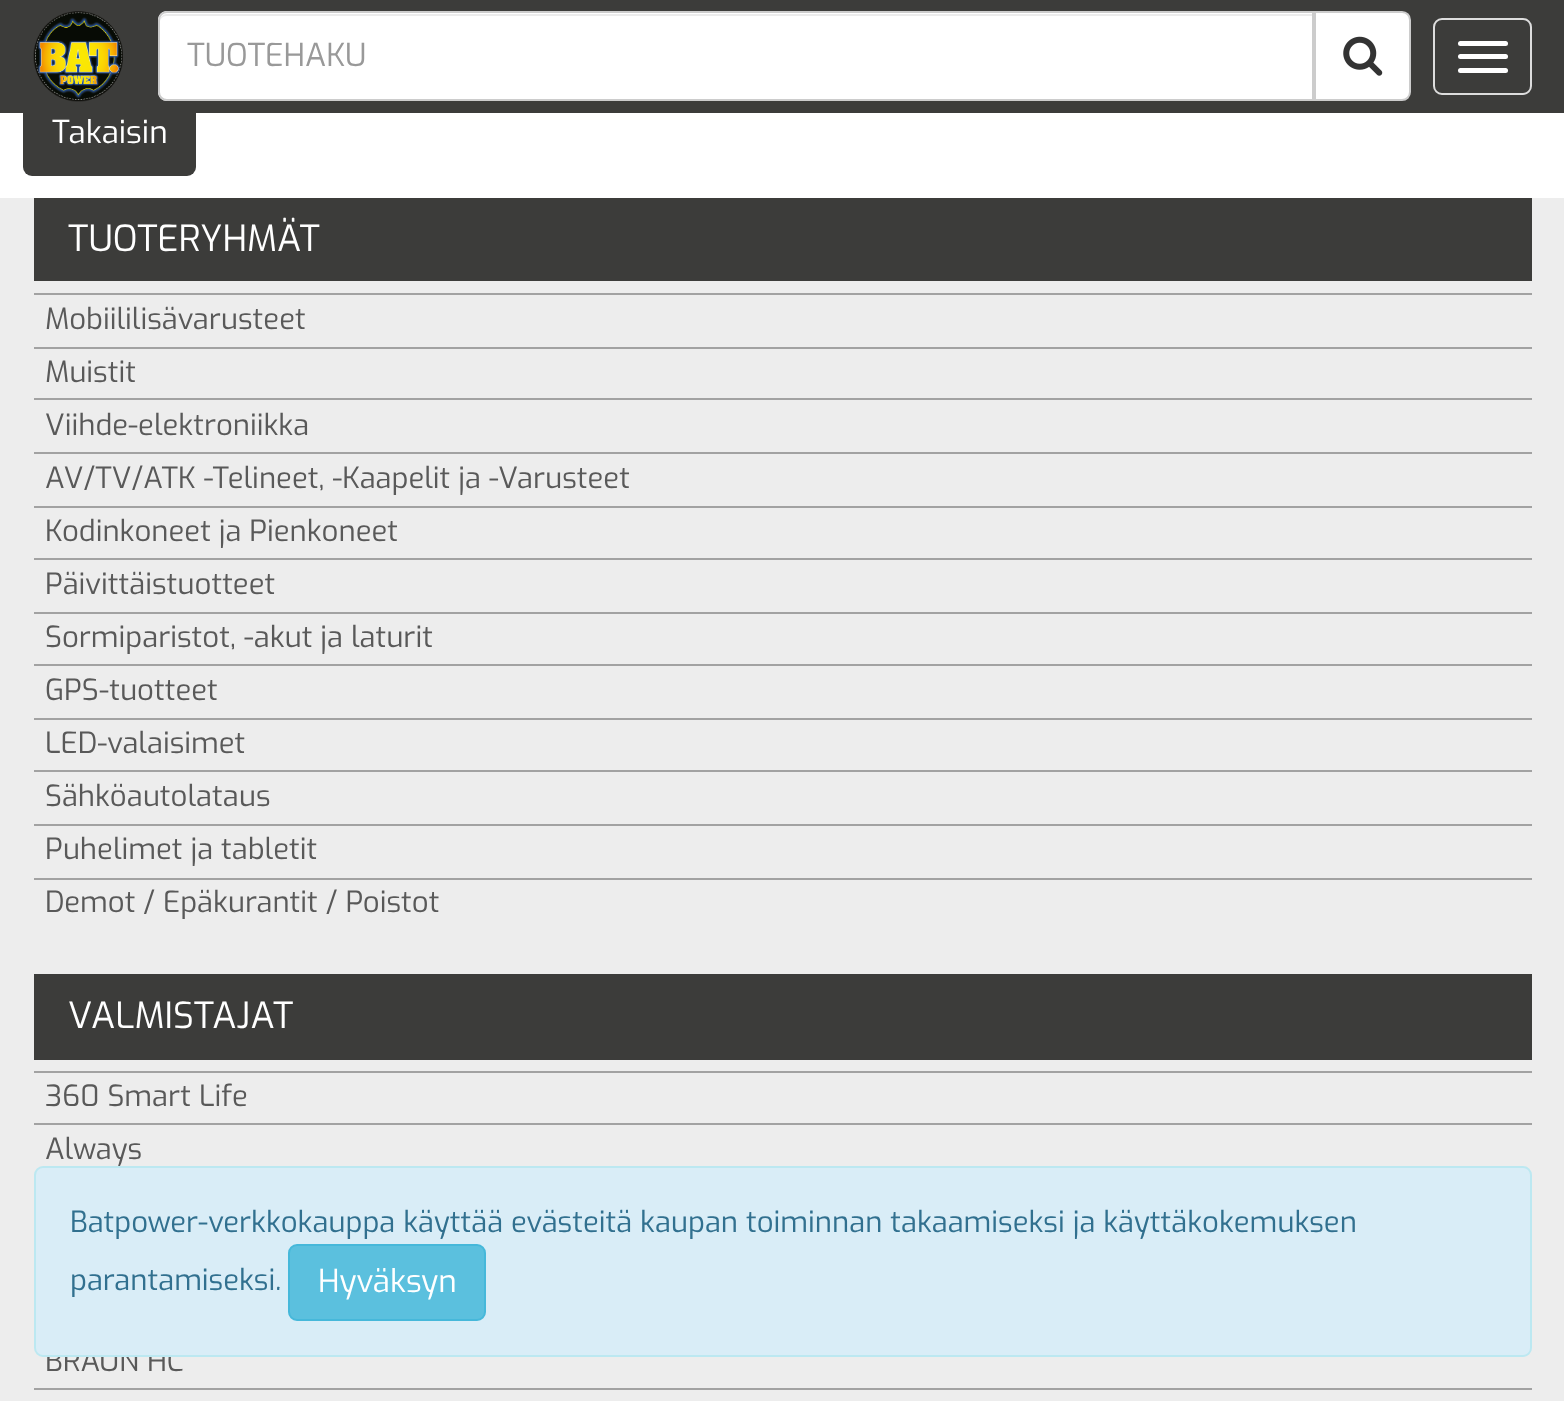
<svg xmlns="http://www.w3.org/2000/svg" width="1564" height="1401">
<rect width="100%" height="100%" fill="#ededed"/>
<rect y="113" width="1564" height="85" fill="#fff"/>
<rect x="23" y="97" width="173" height="79" rx="9" fill="#3c3c3a"/>
<rect width="1564" height="113" fill="#3c3c3a"/>
<image x="33" y="11" width="90" height="91" href="media/1.png"/>
<path d="M167 11h1147v90h-1147c-5 0-9-4-9-9v-72c0-5 4-9 9-9z" fill="#fff"/>
<path d="M166 16h1146v-2h-1145c-5 0-7 4-7 8c0-3 3-6 6-6z" fill="#ececec"/>
<path d="M167 12h1146v88h-1146c-4.5 0-8-3.5-8-8v-72c0-4.5 3.5-8 8-8z" fill="none" stroke="#ccc" stroke-width="2"/>
<text x="187" y="66" style="font-family:Exo;font-size:31.5px;fill:#999">TUOTEHAKU</text>
<path d="M1315 12h87c4.5 0 8 3.5 8 8v72c0 4.5-3.5 8-8 8h-87z" fill="#fff" stroke="#ccc" stroke-width="2"/>
<image x="1343" y="36" width="40" height="40" href="media/2.png"/>
<rect x="1434" y="19" width="97" height="75" rx="8" fill="none" stroke="#ddd" stroke-width="2"/>
<rect x="1458" y="41" width="50" height="5" rx="2.5" fill="#fff"/>
<rect x="1458" y="54" width="50" height="5" rx="2.5" fill="#fff"/>
<rect x="1458" y="68" width="50" height="5" rx="2.5" fill="#fff"/>
<text x="52" y="143" style="font-family:Exo;font-size:31.5px;fill:#fff">Takaisin</text>
<rect x="34" y="198" width="1498" height="83" fill="#3c3c3a"/>
<text x="68" y="251" style="font-family:Exo;font-size:36px;fill:#fff">TUOTERYHMÄT</text>
<rect x="34" y="293" width="1498" height="2" fill="#a2a2a2"/>
<rect x="34" y="347" width="1498" height="2" fill="#a2a2a2"/>
<text x="45" y="329" style="font-family:Exo;font-size:29.25px;fill:#595959">Mobiililisävarusteet</text>
<rect x="34" y="398" width="1498" height="2" fill="#a2a2a2"/>
<text x="45" y="382" style="font-family:Exo;font-size:29.25px;fill:#595959">Muistit</text>
<rect x="34" y="452" width="1498" height="2" fill="#a2a2a2"/>
<text x="45" y="435" style="font-family:Exo;font-size:29.25px;fill:#595959">Viihde-elektroniikka</text>
<rect x="34" y="506" width="1498" height="2" fill="#a2a2a2"/>
<text x="45" y="488" style="font-family:Exo;font-size:29.25px;fill:#595959">AV/TV/ATK -Telineet, -Kaapelit ja -Varusteet</text>
<rect x="34" y="558" width="1498" height="2" fill="#a2a2a2"/>
<text x="45" y="541" style="font-family:Exo;font-size:29.25px;fill:#595959">Kodinkoneet ja Pienkoneet</text>
<rect x="34" y="612" width="1498" height="2" fill="#a2a2a2"/>
<text x="45" y="594" style="font-family:Exo;font-size:29.25px;fill:#595959">Päivittäistuotteet</text>
<rect x="34" y="664" width="1498" height="2" fill="#a2a2a2"/>
<text x="45" y="647" style="font-family:Exo;font-size:29.25px;fill:#595959">Sormiparistot, -akut ja laturit</text>
<rect x="34" y="718" width="1498" height="2" fill="#a2a2a2"/>
<text x="45" y="700" style="font-family:Exo;font-size:29.25px;fill:#595959">GPS-tuotteet</text>
<rect x="34" y="770" width="1498" height="2" fill="#a2a2a2"/>
<text x="45" y="753" style="font-family:Exo;font-size:29.25px;fill:#595959">LED-valaisimet</text>
<rect x="34" y="824" width="1498" height="2" fill="#a2a2a2"/>
<text x="45" y="806" style="font-family:Exo;font-size:29.25px;fill:#595959">Sähköautolataus</text>
<rect x="34" y="878" width="1498" height="2" fill="#a2a2a2"/>
<text x="45" y="859" style="font-family:Exo;font-size:29.25px;fill:#595959">Puhelimet ja tabletit</text>
<text x="45" y="912" style="font-family:Exo;font-size:29.25px;fill:#595959">Demot / Epäkurantit / Poistot</text>
<rect x="34" y="974" width="1498" height="86" fill="#3c3c3a"/>
<text x="68" y="1028" style="font-family:Exo;font-size:36px;fill:#fff">VALMISTAJAT</text>
<rect x="34" y="1071" width="1498" height="2" fill="#a2a2a2"/>
<rect x="34" y="1123" width="1498" height="2" fill="#a2a2a2"/>
<text x="45" y="1106" style="font-family:Exo;font-size:29.25px;fill:#595959">360 Smart Life</text>
<text x="45" y="1159" style="font-family:Exo;font-size:29.25px;fill:#595959">Always</text>
<rect x="34" y="1388" width="1498" height="2" fill="#a2a2a2"/>
<text x="45" y="1371" style="font-family:Exo;font-size:29.25px;fill:#595959">BRAUN HC</text>
<rect x="35" y="1167" width="1496" height="189" rx="8" fill="#d9edf7" stroke="#bce8f1" stroke-width="2"/>
<text x="70" y="1232" style="font-family:Exo;font-size:29.25px;fill:#31708f">Batpower-verkkokauppa käyttää evästeitä kaupan toiminnan takaamiseksi ja käyttäkokemuksen</text>
<text x="70" y="1290" style="font-family:Exo;font-size:29.25px;fill:#31708f">parantamiseksi.</text>
<rect x="289" y="1245" width="196" height="75" rx="8" fill="#5bc0de" stroke="#46b8da" stroke-width="2"/>
<text x="318" y="1292" style="font-family:Exo;font-size:31.5px;fill:#fff">Hyväksyn</text>
</svg>
